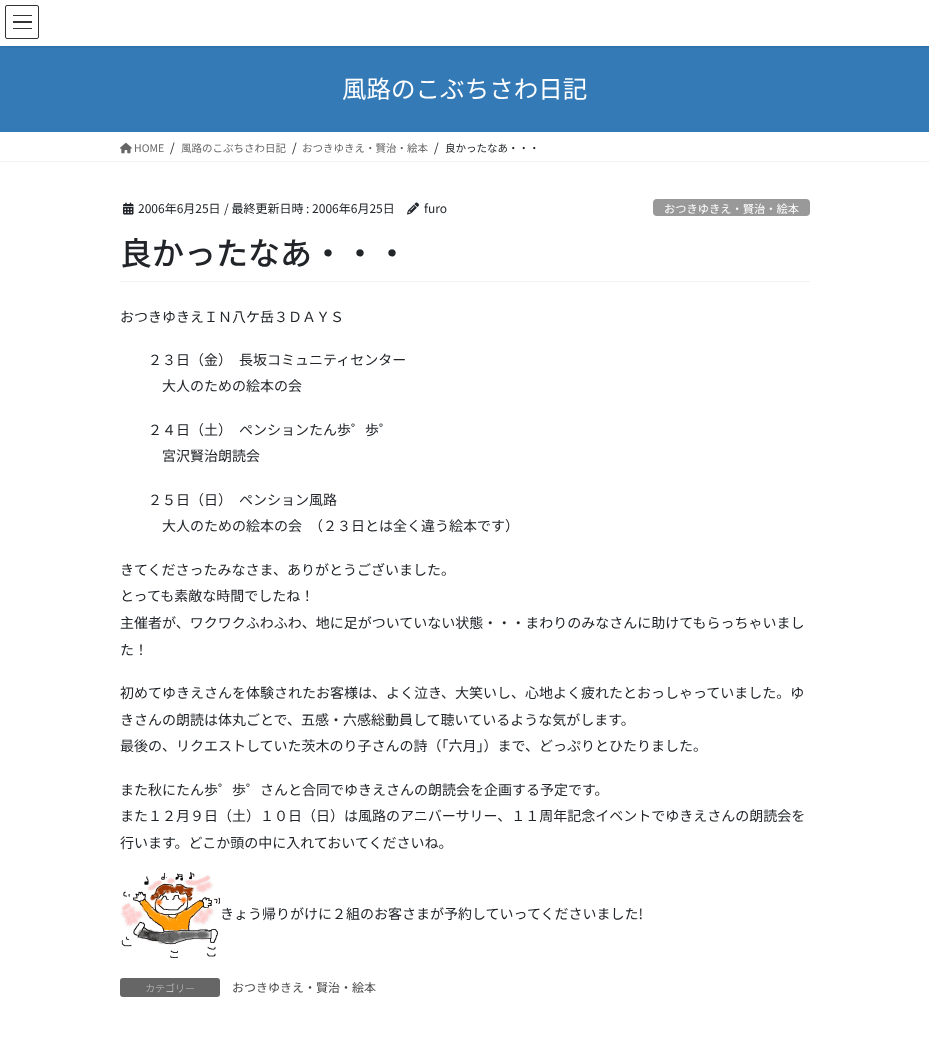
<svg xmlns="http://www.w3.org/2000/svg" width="929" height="1040">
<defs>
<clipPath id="clip1"><rect x="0" y="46" width="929" height="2"/></clipPath>
</defs>
<rect width="100%" height="100%" fill="#fff"/>
<rect y="46" width="929" height="86" fill="#337ab7"/>
<g clip-path="url(#clip1)">
<rect y="1" width="929" height="46" fill="#0000001a" filter="blur(1.5px)"/>
</g>
<rect x="13" y="15" width="19" height="1" fill="#333"/>
<rect x="13" y="21" width="19" height="2" fill="#333"/>
<rect x="13" y="28" width="19" height="1" fill="#333"/>
<rect x="5.5" y="5.5" width="33" height="33" rx="1.5" fill="none" stroke="#333"/>
<text x="342" y="98" style="font-family:Noto Sans JP;font-size:24.5px;fill:#fff">風路のこぶちさわ日記</text>
<rect y="161" width="929" height="1" fill="#f2f2f2"/>
<image x="120" y="142" width="12" height="12" href="media/1.png"/>
<text x="134" y="152" style="font-family:Noto Sans JP;font-size:10.5px;fill:#666">HOME</text>
<text x="170" y="152" style="font-family:Noto Sans JP;font-size:12px;fill:#212529">/</text>
<text x="181" y="152" style="font-family:Noto Sans JP;font-size:10.5px;fill:#666">風路のこぶちさわ日記</text>
<text x="292" y="152" style="font-family:Noto Sans JP;font-size:12px;fill:#212529">/</text>
<text x="302" y="152" style="font-family:Noto Sans JP;font-size:10.5px;fill:#666">おつきゆきえ・賢治・絵本</text>
<text x="434" y="152" style="font-family:Noto Sans JP;font-size:12px;fill:#212529">/</text>
<text x="445" y="152" style="font-family:Noto Sans JP;font-size:10.5px;fill:#212529">良かったなあ・・・</text>
<rect x="120" y="281" width="690" height="1" fill="#f2f2f2"/>
<image x="123" y="202" width="11" height="13" href="media/2.png"/>
<text x="138" y="213" style="font-family:Noto Sans JP;font-size:12px;fill:#212529">2006年6月25日</text>
<text x="224" y="213" style="font-family:Noto Sans JP;font-size:12px;fill:#212529">/ 最終更新日時 : 2006年6月25日</text>
<image x="407" y="202" width="12" height="13" href="media/3.png"/>
<text x="424" y="213" style="font-family:Noto Sans JP;font-size:12px;fill:#212529">furo</text>
<rect x="653" y="199" width="157" height="17" rx="4" fill="#999"/>
<text x="664" y="213" style="font-family:Noto Sans JP;font-size:11.25px;fill:#fff">おつきゆきえ・賢治・絵本</text>
<text x="120" y="265" style="font-family:Noto Sans JP;font-size:32px;font-weight:500;fill:#212529">良かったなあ・・・</text>
<text x="120" y="322" style="font-family:Noto Sans JP;font-size:14px;fill:#212529">おつきゆきえＩＮ八ケ岳３ＤＡＹＳ</text>
<text x="148" y="365" style="font-family:Noto Sans JP;font-size:14px;fill:#212529">２３日（金）　長坂コミュニティセンター</text>
<text x="162" y="391" style="font-family:Noto Sans JP;font-size:14px;fill:#212529">大人のための絵本の会</text>
<text x="148" y="435" style="font-family:Noto Sans JP;font-size:14px;fill:#212529">２４日（土）　ペンションたん歩゜歩゜</text>
<text x="162" y="461" style="font-family:Noto Sans JP;font-size:14px;fill:#212529">宮沢賢治朗読会</text>
<text x="148" y="505" style="font-family:Noto Sans JP;font-size:14px;fill:#212529">２５日（日）　ペンション風路</text>
<text x="162" y="531" style="font-family:Noto Sans JP;font-size:14px;fill:#212529">大人のための絵本の会　（２３日とは全く違う絵本です）</text>
<text x="120" y="575" style="font-family:Noto Sans JP;font-size:14px;fill:#212529">きてくださったみなさま、ありがとうございました。</text>
<text x="120" y="601" style="font-family:Noto Sans JP;font-size:14px;fill:#212529">とっても素敵な時間でしたね！</text>
<text x="120" y="628" style="font-family:Noto Sans JP;font-size:14px;fill:#212529">主催者が、ワクワクふわふわ、地に足がついていない状態・・・まわりのみなさんに助けてもらっちゃいまし</text>
<text x="120" y="655" style="font-family:Noto Sans JP;font-size:14px;fill:#212529">た！</text>
<text x="120" y="698" style="font-family:Noto Sans JP;font-size:14px;fill:#212529">初めてゆきえさんを体験されたお客様は、よく泣き、大笑いし、心地よく疲れたとおっしゃっていました。ゆ</text>
<text x="120" y="725" style="font-family:Noto Sans JP;font-size:14px;fill:#212529">きさんの朗読は体丸ごとで、五感・六感総動員して聴いているような気がします。</text>
<text x="120" y="751" style="font-family:Noto Sans JP;font-size:14px;fill:#212529">最後の、リクエストしていた茨木のり子さんの詩（「六月」）まで、どっぷりとひたりました。</text>
<text x="120" y="795" style="font-family:Noto Sans JP;font-size:14px;fill:#212529">また秋にたん歩゜歩゜さんと合同でゆきえさんの朗読会を企画する予定です。</text>
<text x="120" y="821" style="font-family:Noto Sans JP;font-size:14px;fill:#212529">また１２月９日（土）１０日（日）は風路のアニバーサリー、１１周年記念イベントでゆきえさんの朗読会を</text>
<text x="120" y="848" style="font-family:Noto Sans JP;font-size:14px;fill:#212529">行います。どこか頭の中に入れておいてくださいね。</text>
<image x="120" y="872" width="100" height="86" href="media/4.png"/>
<text x="220" y="919" style="font-family:Noto Sans JP;font-size:14px;fill:#212529">きょう帰りがけに２組のお客さまが予約していってくださいました!</text>
<rect x="120" y="978" width="100" height="19" rx="3" fill="#666"/>
<text x="145" y="992" style="font-family:Noto Sans JP;font-size:10px;font-weight:100;fill:#fff">カテゴリー</text>
<text x="232" y="992" style="font-family:Noto Sans JP;font-size:12px;fill:#464646">おつきゆきえ・賢治・絵本</text>
</svg>
